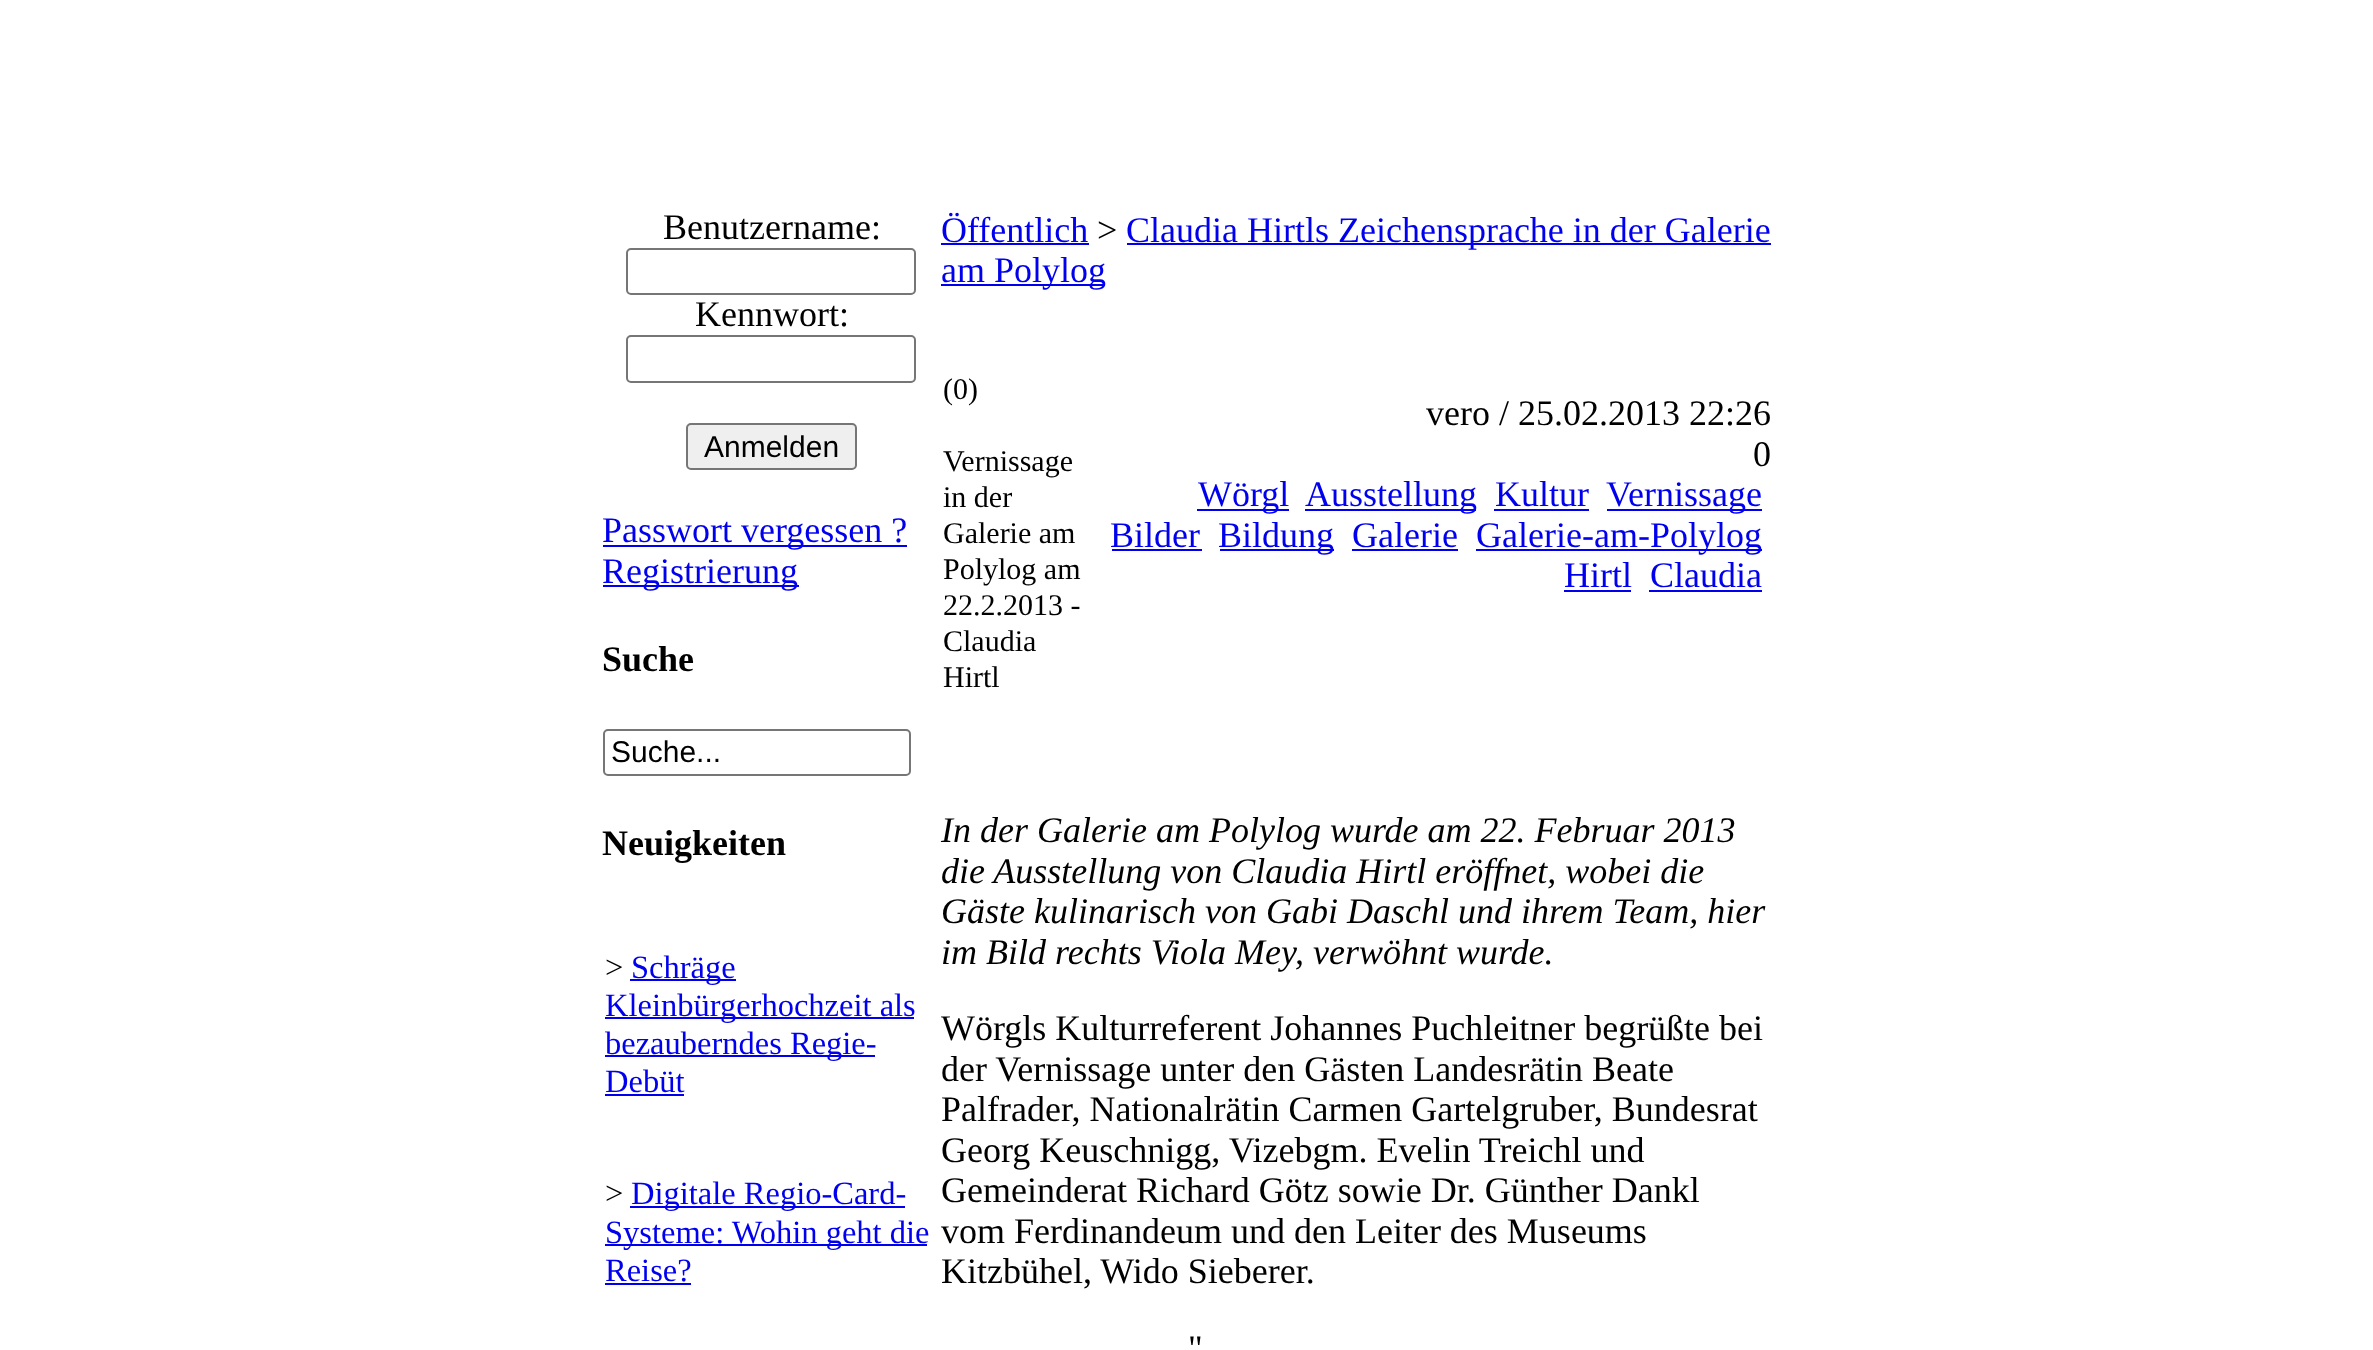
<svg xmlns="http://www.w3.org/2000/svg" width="2373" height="1350">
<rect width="100%" height="100%" fill="#fff"/>
<text x="663" y="239" style="font-family:Liberation Serif;font-size:36px;fill:#000">Benutzername:</text>
<rect x="627" y="249" width="288" height="45" rx="4" fill="none" stroke="#767676" stroke-width="2"/>
<text x="695" y="326" style="font-family:Liberation Serif;font-size:36px;fill:#000">Kennwort:</text>
<rect x="627" y="336" width="288" height="46" rx="4" fill="none" stroke="#767676" stroke-width="2"/>
<rect x="687" y="424" width="169" height="45" rx="4" fill="#efefef" stroke="#767676" stroke-width="2"/>
<text x="704" y="457" style="font-family:Liberation Sans;font-size:30px;fill:#000">Anmelden</text>
<rect x="603" y="545" width="304" height="2" fill="#00e"/>
<text x="602" y="542" style="font-family:Liberation Serif;font-size:36px;fill:#00e">Passwort vergessen ?</text>
<rect x="603" y="585" width="196" height="2" fill="#00e"/>
<text x="602" y="583" style="font-family:Liberation Serif;font-size:36px;fill:#00e">Registrierung</text>
<text x="602" y="671" style="font-family:Liberation Serif;font-size:36px;font-weight:bold;fill:#000">Suche</text>
<rect x="604" y="730" width="306" height="45" rx="4" fill="none" stroke="#767676" stroke-width="2"/>
<text x="611" y="762" style="font-family:Liberation Sans;font-size:30px;fill:#000">Suche...</text>
<text x="602" y="855" style="font-family:Liberation Serif;font-size:36px;font-weight:bold;fill:#000">Neuigkeiten</text>
<text x="605" y="978" style="font-family:Liberation Serif;font-size:32.5px;fill:#000">&gt;</text>
<rect x="630" y="979" width="106" height="2" fill="#00e"/>
<text x="631" y="978" style="font-family:Liberation Serif;font-size:32.5px;fill:#00e">Schräge</text>
<rect x="605" y="1017" width="309" height="2" fill="#00e"/>
<text x="605" y="1016" style="font-family:Liberation Serif;font-size:32.5px;fill:#00e">Kleinbürgerhochzeit als</text>
<rect x="605" y="1055" width="270" height="2" fill="#00e"/>
<text x="605" y="1054" style="font-family:Liberation Serif;font-size:32.5px;fill:#00e">bezauberndes Regie-</text>
<text x="605" y="1092" style="font-family:Liberation Serif;font-size:32.5px;fill:#00e">Debüt</text>
<rect x="605" y="1094" width="79" height="2" fill="#00e"/>
<text x="605" y="1204" style="font-family:Liberation Serif;font-size:32.5px;fill:#000">&gt;</text>
<rect x="630" y="1206" width="275" height="2" fill="#00e"/>
<text x="631" y="1204" style="font-family:Liberation Serif;font-size:32.5px;fill:#00e">Digitale Regio-Card-</text>
<rect x="605" y="1244" width="322" height="2" fill="#00e"/>
<text x="605" y="1243" style="font-family:Liberation Serif;font-size:32.5px;fill:#00e">Systeme: Wohin geht die</text>
<text x="605" y="1281" style="font-family:Liberation Serif;font-size:32.5px;fill:#00e">Reise?</text>
<rect x="605" y="1283" width="86" height="2" fill="#00e"/>
<text x="941" y="242" style="font-family:Liberation Serif;font-size:36px;fill:#00e">Öffentlich</text>
<rect x="941" y="243" width="148" height="2" fill="#00e"/>
<text x="1097" y="242" style="font-family:Liberation Serif;font-size:36px;fill:#000">&gt;</text>
<rect x="1127" y="243" width="644" height="2" fill="#00e"/>
<text x="1126" y="242" style="font-family:Liberation Serif;font-size:36px;fill:#00e">Claudia Hirtls Zeichensprache in der Galerie</text>
<rect x="941" y="284" width="164" height="2" fill="#00e"/>
<text x="941" y="282" style="font-family:Liberation Serif;font-size:36px;fill:#00e">am Polylog</text>
<text x="943" y="399" style="font-family:Liberation Serif;font-size:30px;fill:#000">(0)</text>
<text x="943" y="471" style="font-family:Liberation Serif;font-size:30px;fill:#000">Vernissage</text>
<text x="943" y="507" style="font-family:Liberation Serif;font-size:30px;fill:#000">in der</text>
<text x="943" y="543" style="font-family:Liberation Serif;font-size:30px;fill:#000">Galerie am</text>
<text x="943" y="579" style="font-family:Liberation Serif;font-size:30px;fill:#000">Polylog am</text>
<text x="943" y="615" style="font-family:Liberation Serif;font-size:30px;fill:#000">22.2.2013 -</text>
<text x="943" y="651" style="font-family:Liberation Serif;font-size:30px;fill:#000">Claudia</text>
<text x="943" y="687" style="font-family:Liberation Serif;font-size:30px;fill:#000">Hirtl</text>
<text x="1426" y="425" style="font-family:Liberation Serif;font-size:36px;fill:#000">vero / 25.02.2013 22:26</text>
<text x="1753" y="466" style="font-family:Liberation Serif;font-size:36px;fill:#000">0</text>
<rect x="1197" y="509" width="92" height="2" fill="#00e"/>
<text x="1198" y="506" style="font-family:Liberation Serif;font-size:36px;fill:#00e">Wörgl</text>
<rect x="1305" y="509" width="171" height="2" fill="#00e"/>
<text x="1305" y="506" style="font-family:Liberation Serif;font-size:36px;fill:#00e">Ausstellung</text>
<text x="1495" y="506" style="font-family:Liberation Serif;font-size:36px;fill:#00e">Kultur</text>
<rect x="1494" y="509" width="95" height="2" fill="#00e"/>
<rect x="1607" y="509" width="155" height="2" fill="#00e"/>
<text x="1606" y="506" style="font-family:Liberation Serif;font-size:36px;fill:#00e">Vernissage</text>
<text x="1110" y="547" style="font-family:Liberation Serif;font-size:36px;fill:#00e">Bilder</text>
<rect x="1112" y="549" width="90" height="2" fill="#00e"/>
<rect x="1220" y="549" width="114" height="2" fill="#00e"/>
<text x="1218" y="547" style="font-family:Liberation Serif;font-size:36px;fill:#00e">Bildung</text>
<text x="1352" y="547" style="font-family:Liberation Serif;font-size:36px;fill:#00e">Galerie</text>
<rect x="1352" y="549" width="106" height="2" fill="#00e"/>
<rect x="1476" y="549" width="286" height="2" fill="#00e"/>
<text x="1476" y="547" style="font-family:Liberation Serif;font-size:36px;fill:#00e">Galerie-am-Polylog</text>
<text x="1564" y="587" style="font-family:Liberation Serif;font-size:36px;fill:#00e">Hirtl</text>
<rect x="1564" y="590" width="67" height="2" fill="#00e"/>
<text x="1650" y="587" style="font-family:Liberation Serif;font-size:36px;fill:#00e">Claudia</text>
<rect x="1649" y="590" width="113" height="2" fill="#00e"/>
<text x="941" y="842" style="font-family:Liberation Serif;font-size:36px;font-style:italic;fill:#000">In der Galerie am Polylog wurde am 22. Februar 2013</text>
<text x="941" y="883" style="font-family:Liberation Serif;font-size:36px;font-style:italic;fill:#000">die Ausstellung von Claudia Hirtl eröffnet, wobei die</text>
<text x="941" y="923" style="font-family:Liberation Serif;font-size:36px;font-style:italic;fill:#000">Gäste kulinarisch von Gabi Daschl und ihrem Team, hier</text>
<text x="941" y="964" style="font-family:Liberation Serif;font-size:36px;font-style:italic;fill:#000">im Bild rechts Viola Mey, verwöhnt wurde.</text>
<text x="941" y="1040" style="font-family:Liberation Serif;font-size:36px;fill:#000">Wörgls Kulturreferent Johannes Puchleitner begrüßte bei</text>
<text x="941" y="1081" style="font-family:Liberation Serif;font-size:36px;fill:#000">der Vernissage unter den Gästen Landesrätin Beate</text>
<text x="941" y="1121" style="font-family:Liberation Serif;font-size:36px;fill:#000">Palfrader, Nationalrätin Carmen Gartelgruber, Bundesrat</text>
<text x="941" y="1162" style="font-family:Liberation Serif;font-size:36px;fill:#000">Georg Keuschnigg, Vizebgm. Evelin Treichl und</text>
<text x="941" y="1202" style="font-family:Liberation Serif;font-size:36px;fill:#000">Gemeinderat Richard Götz sowie Dr. Günther Dankl</text>
<text x="941" y="1243" style="font-family:Liberation Serif;font-size:36px;fill:#000">vom Ferdinandeum und den Leiter des Museums</text>
<text x="941" y="1283" style="font-family:Liberation Serif;font-size:36px;fill:#000">Kitzbühel, Wido Sieberer.</text>
<text x="1188" y="1360" style="font-family:Liberation Serif;font-size:36px;fill:#000">"</text>
</svg>
